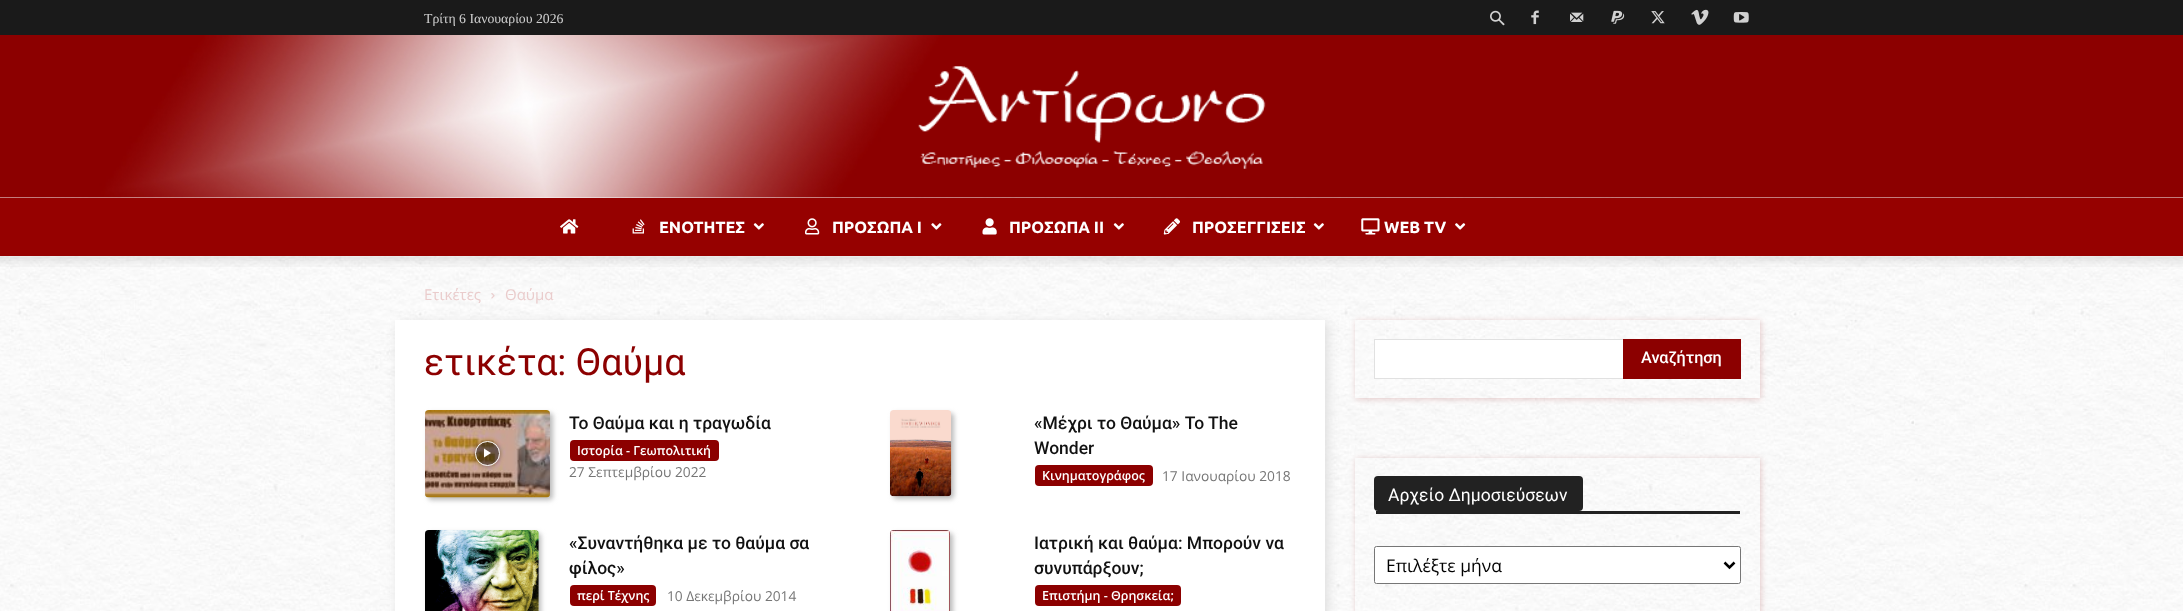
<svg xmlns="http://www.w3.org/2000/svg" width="2183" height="611">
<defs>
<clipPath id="clip1"><path d="M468 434h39v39h-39zm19.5 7c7 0 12.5 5.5 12.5 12.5c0 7-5.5 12.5-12.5 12.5c-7 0-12.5-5.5-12.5-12.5c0-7 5.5-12.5 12.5-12.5z" clip-rule="evenodd"/></clipPath>
<clipPath id="clip2"><path d="M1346 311h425v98h-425zm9 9h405v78h-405z" clip-rule="evenodd"/></clipPath>
<clipPath id="clip3"><path d="M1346 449h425v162h-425zm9 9h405v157h-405z" clip-rule="evenodd"/></clipPath>
</defs>
<rect width="100%" height="100%" fill="#fff"/>
<rect width="2183" height="35" fill="#1a1a1a"/>
<text x="424" y="23" style="font-family:Liberation Serif;font-size:13.75px;fill:#d1d1d1">Τρίτη 6 Ιανουαρίου 2026</text>
<image x="1490" y="10" width="15" height="16" href="media/1.png"/>
<image x="1531" y="10" width="8" height="15" href="media/2.png"/>
<image x="1570" y="12" width="14" height="10" href="media/3.png"/>
<image x="1611" y="10" width="14" height="14" href="media/4.png"/>
<image x="1651" y="11" width="14" height="13" href="media/5.png"/>
<image x="1691" y="9" width="18" height="16" href="media/6.png"/>
<image x="1733" y="12" width="16" height="11" href="media/7.png"/>
<image x="0" y="197" width="2183" height="1" href="media/8.png"/>
<image x="0" y="35" width="2183" height="163" href="media/9.png"/>
<image x="918" y="66" width="348" height="103" href="media/10.png"/>
<rect y="198" width="2183" height="58" fill="#960100"/>
<image x="560" y="219" width="19" height="15" href="media/11.png"/>
<image x="632" y="219" width="13" height="15" href="media/12.png"/>
<text x="659" y="233" style="font-family:Ubuntu;font-size:16.25px;font-weight:bold;fill:#fff">ΕNOTHTEΣ</text>
<image x="753" y="223" width="11" height="7" href="media/13.png"/>
<image x="805" y="218" width="15" height="17" href="media/14.png"/>
<text x="832" y="233" style="font-family:Ubuntu;font-size:16.25px;font-weight:bold;fill:#fff">ΠΡΟΣΩΠΑ Ι</text>
<image x="931" y="223" width="11" height="7" href="media/15.png"/>
<image x="982" y="218" width="15" height="17" href="media/16.png"/>
<text x="1009" y="233" style="font-family:Ubuntu;font-size:16.25px;font-weight:bold;fill:#fff">ΠΡΟΣΩΠΑ II</text>
<image x="1113" y="223" width="11" height="7" href="media/13.png"/>
<image x="1163" y="218" width="17" height="17" href="media/17.png"/>
<text x="1192" y="233" style="font-family:Ubuntu;font-size:16.25px;font-weight:bold;fill:#fff">ΠΡΟΣΕΓΓΙΣΕΙΣ</text>
<image x="1313" y="223" width="11" height="7" href="media/13.png"/>
<image x="1361" y="218" width="19" height="17" href="media/18.png"/>
<text x="1384" y="233" style="font-family:Ubuntu;font-size:16.25px;font-weight:bold;fill:#fff">WEB TV</text>
<image x="1455" y="223" width="11" height="7" href="media/19.png"/>
<image x="0" y="256" width="2183" height="355" href="media/21.png"/>
<image x="0" y="256" width="2183" height="11" href="media/20.png"/>
<text x="424" y="300" style="font-family:Open Sans;font-size:15px;fill:#eacccc">Ετικέτες</text>
<image x="491" y="293" width="4" height="6" href="media/22.png"/>
<text x="505" y="300" style="font-family:Open Sans;font-size:15px;fill:#eacccc">Θαύμα</text>
<rect x="398" y="323" width="930" height="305" fill="#ddd" filter="blur(5.5px)"/>
<rect x="395" y="320" width="930" height="291" fill="#fff"/>
<text x="424" y="375" style="font-family:Roboto;font-size:37.5px;fill:#8c0000">ετικέτα: Θαύμα</text>
<rect x="428" y="413" width="125" height="87" rx="4" fill="#bbb" filter="blur(2.5px)"/>
<image x="425" y="410" width="125" height="88" href="media/23.png"/>
<g clip-path="url(#clip1)">
<rect x="475" y="441" width="25" height="25" rx="12.5" fill="#00000066" filter="blur(2px)"/>
</g>
<circle cx="487.5" cy="453.5" r="12" fill="#0000007a" stroke="#fff"/>
<path d="M484 448.5v9l7-4.5z" fill="#fff"/>
<text x="569" y="429" style="font-family:Roboto;font-size:17.5px;font-weight:500;fill:#111">To Θαύμα και η τραγωδία</text>
<rect x="570" y="440" width="149" height="21" rx="4" fill="#8c0000"/>
<text x="577" y="455" style="font-family:Open Sans;font-size:12.5px;font-weight:600;fill:#fff">Ιστορία - Γεωπολιτική</text>
<text x="569" y="477" style="font-family:Open Sans;font-size:13.75px;fill:#767676">27 Σεπτεμβρίου 2022</text>
<rect x="893" y="413" width="61" height="86" rx="4" fill="#bbb" filter="blur(2.5px)"/>
<image x="890" y="410" width="62" height="87" href="media/24.png"/>
<text x="1034" y="429" style="font-family:Roboto;font-size:17.5px;font-weight:500;fill:#111">«Μέχρι το Θαύμα» To The</text>
<text x="1034" y="454" style="font-family:Roboto;font-size:17.5px;font-weight:500;fill:#111">Wonder</text>
<rect x="1035" y="465" width="118" height="21" rx="4" fill="#8c0000"/>
<text x="1042" y="480" style="font-family:Open Sans;font-size:12.5px;font-weight:600;fill:#fff">Κινηματογράφος</text>
<text x="1162" y="481" style="font-family:Open Sans;font-size:13.75px;fill:#767676">17 Ιανουαρίου 2018</text>
<rect x="428" y="533" width="113" height="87" rx="4" fill="#bbb" filter="blur(2.5px)"/>
<image x="425" y="530" width="114" height="81" href="media/25.png"/>
<text x="569" y="549" style="font-family:Roboto;font-size:17.5px;font-weight:500;fill:#111">«Συναντήθηκα με το θαύμα σα</text>
<text x="569" y="574" style="font-family:Roboto;font-size:17.5px;font-weight:500;fill:#111">φίλος»</text>
<rect x="570" y="585" width="86" height="21" rx="4" fill="#8c0000"/>
<text x="577" y="600" style="font-family:Open Sans;font-size:12.5px;font-weight:600;fill:#fff">περί Τέχνης</text>
<text x="667" y="601" style="font-family:Open Sans;font-size:13.75px;fill:#767676">10 Δεκεμβρίου 2014</text>
<rect x="893" y="533" width="60" height="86" rx="4" fill="#bbb" filter="blur(2.5px)"/>
<image x="890" y="530" width="60" height="81" href="media/26.png"/>
<text x="1034" y="549" style="font-family:Roboto;font-size:17.5px;font-weight:500;fill:#111">Ιατρική και θαύμα: Μπορούν να</text>
<text x="1034" y="574" style="font-family:Roboto;font-size:17.5px;font-weight:500;fill:#111">συνυπάρξουν;</text>
<rect x="1035" y="585" width="146" height="21" rx="4" fill="#8c0000"/>
<text x="1042" y="600" style="font-family:Open Sans;font-size:12.5px;font-weight:600;fill:#fff">Επιστήμη - Θρησκεία;</text>
<g clip-path="url(#clip2)">
<rect x="1356" y="321" width="405" height="78" fill="#8c000033" filter="blur(3px)"/>
</g>
<rect x="1375" y="340" width="248" height="38" fill="#fff"/>
<rect x="1374" y="339" width="249" height="1" fill="#e1e1e1"/>
<rect x="1374" y="378" width="249" height="1" fill="#e1e1e1"/>
<rect x="1374" y="339" width="1" height="40" fill="#e1e1e1"/>
<rect x="1623" y="339" width="118" height="40" fill="#8c0000"/>
<text x="1641" y="363" style="font-family:Roboto;font-size:16.25px;font-weight:500;fill:#fff">Αναζήτηση</text>
<g clip-path="url(#clip3)">
<rect x="1356" y="459" width="405" height="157" fill="#8c000033" filter="blur(3px)"/>
</g>
<rect x="1376" y="511" width="364" height="3" fill="#222"/>
<rect x="1374" y="476" width="209" height="35" rx="4" fill="#222"/>
<text x="1388" y="501" style="font-family:Roboto;font-size:17.5px;fill:#fff">Aρχείο Δημοσιεύσεων</text>
<rect x="1374.5" y="546.5" width="366" height="37" rx="2" fill="#fff" stroke="#767676"/>
<path d="M1724.5 562.5l5 5l5-5" fill="none" stroke="#000" stroke-width="2.5"/>
<text x="1386" y="572" style="font-family:Open Sans;font-size:17.5px;fill:#000">Επιλέξτε μήνα</text>
</svg>
